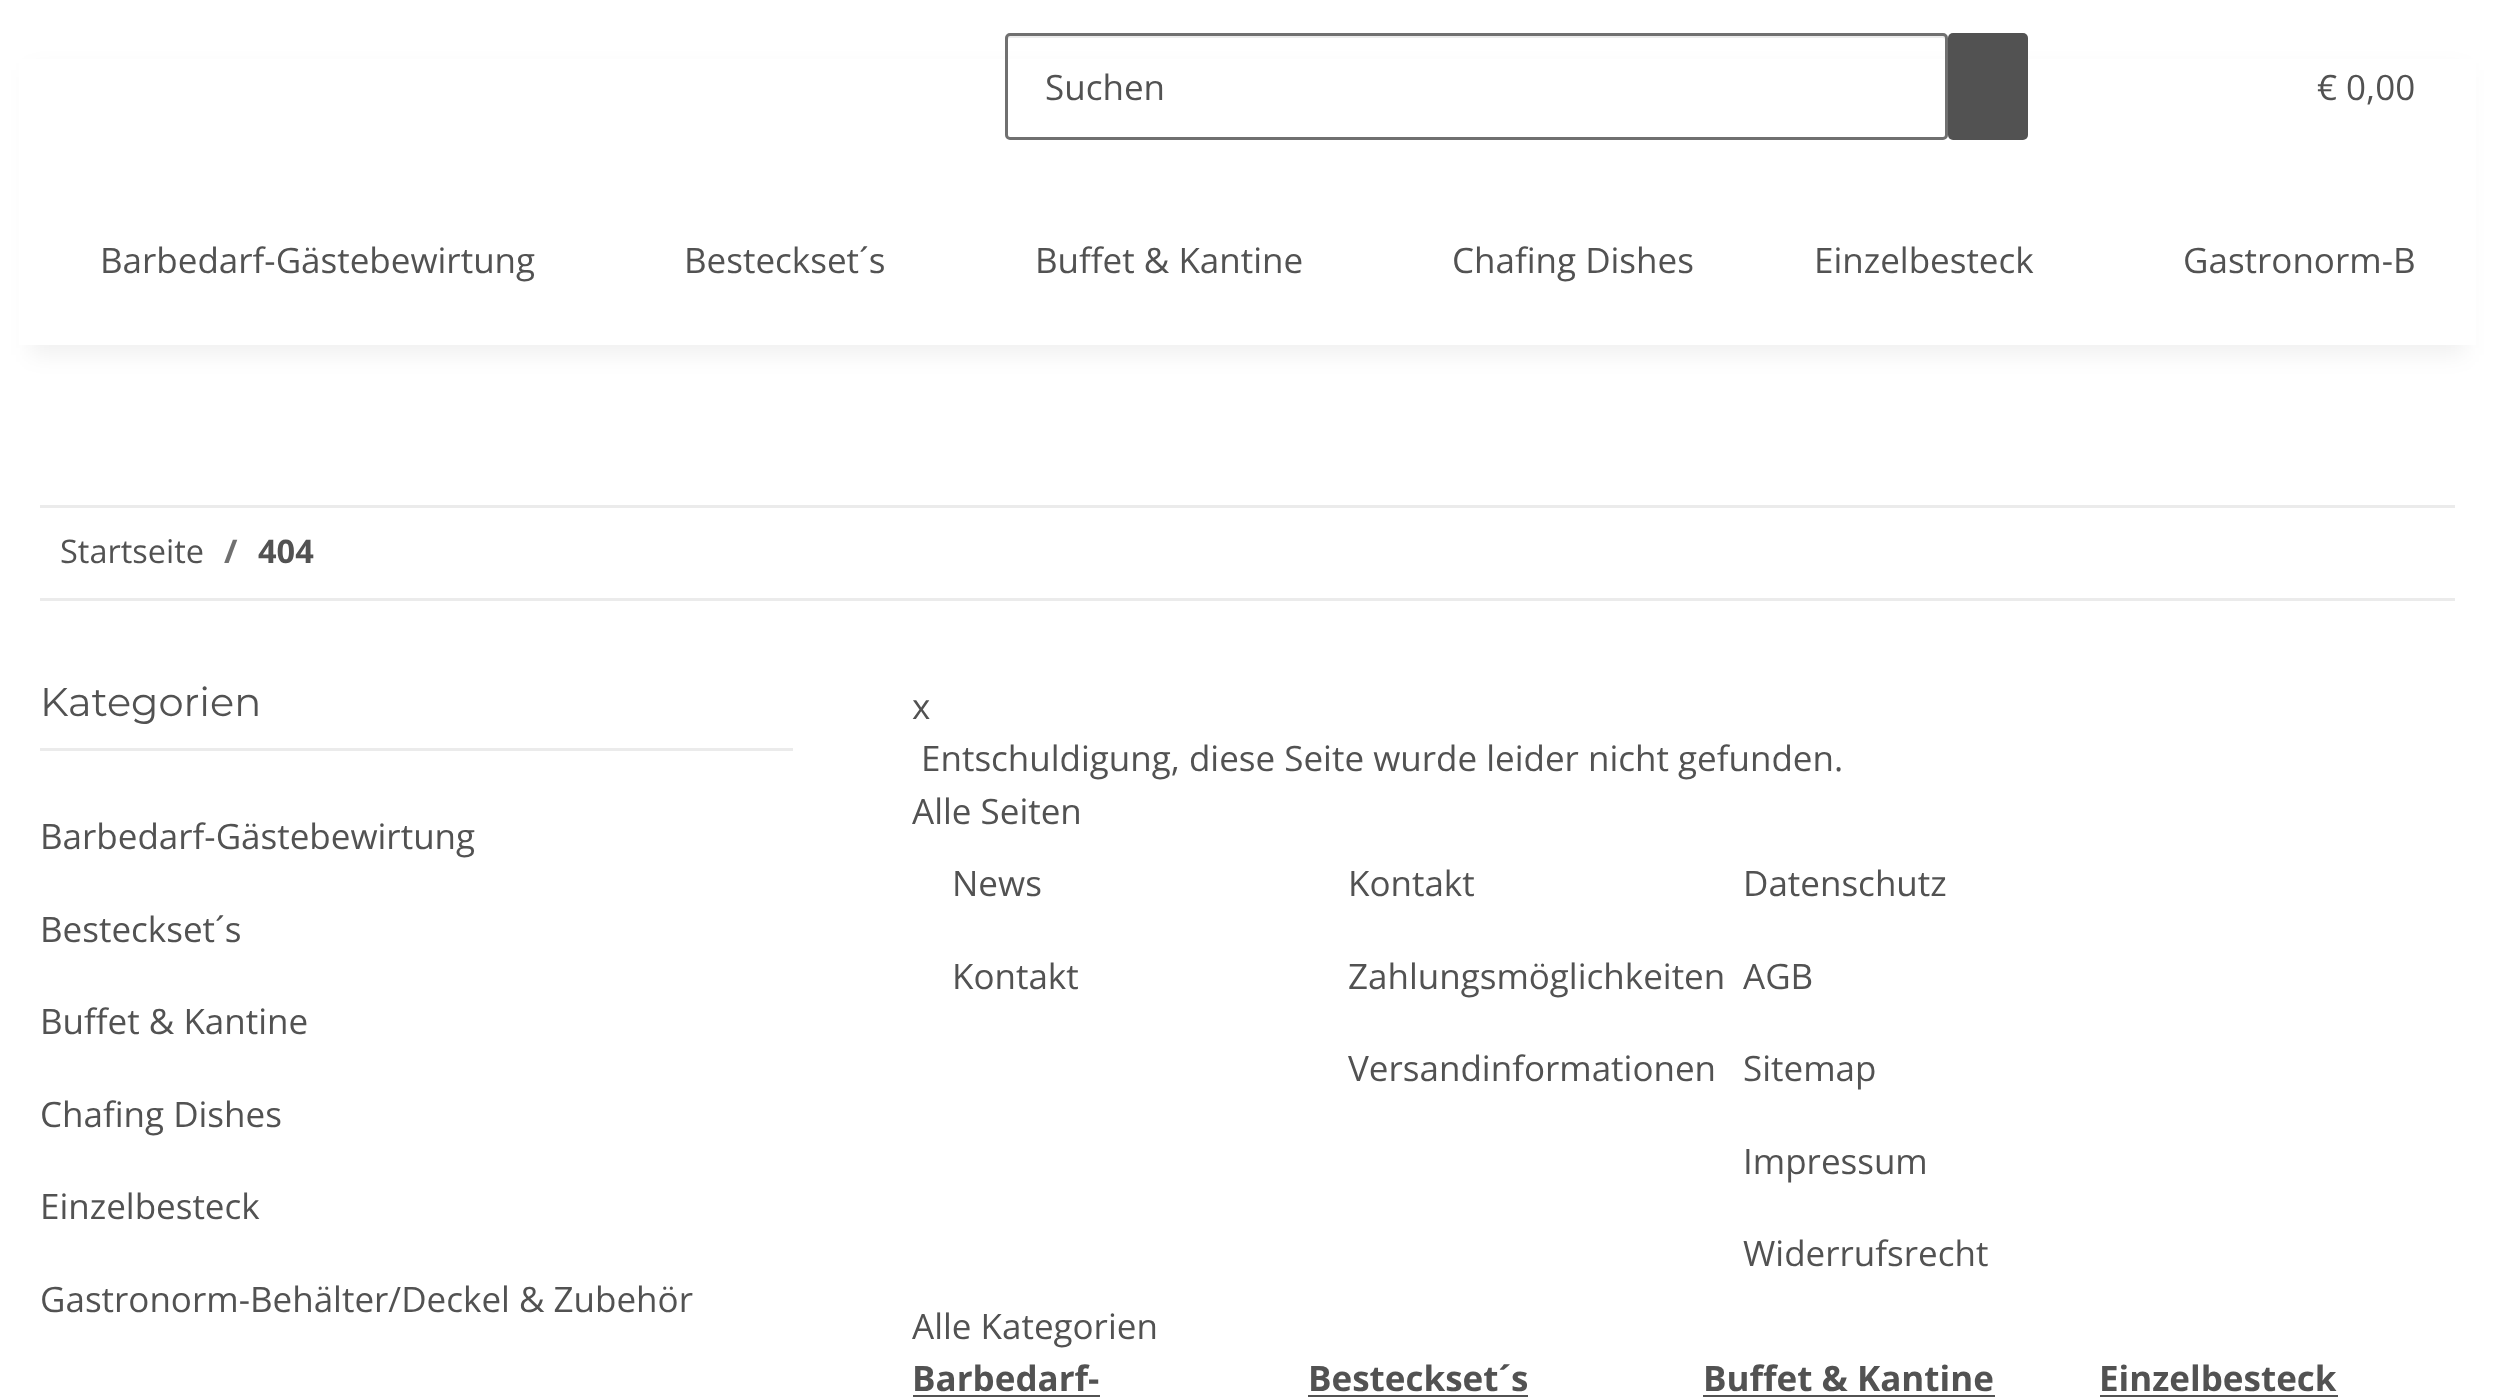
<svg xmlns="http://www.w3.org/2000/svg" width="2495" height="1397">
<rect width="100%" height="100%" fill="#fff"/>
<rect x="30" y="70" width="2435" height="285" fill="#0000000f" filter="blur(11px)"/>
<rect x="19" y="59" width="2457" height="286" fill="#fff"/>
<path d="M1010 38h932c2 0 3 1 3 2v-2c0-2-1-3-3-3h-932c-1 0-2 1-2 3v2c0-1 1-2 2-2z" fill="#ececec"/>
<rect x="1006.5" y="34.5" width="940" height="104" rx="3.5" fill="none" stroke="#707070" stroke-width="3"/>
<text x="1045" y="100" style="font-family:Open Sans;font-size:35px;fill:#525252">Suchen</text>
<rect x="1948" y="33" width="80" height="107" rx="5" fill="#525252"/>
<text x="2317" y="100" style="font-family:Open Sans;font-size:35px;fill:#525252">€ 0,00</text>
<text x="100" y="273" style="font-family:Open Sans;font-size:35px;fill:#525252">Barbedarf-Gästebewirtung</text>
<text x="684" y="273" style="font-family:Open Sans;font-size:35px;fill:#525252">Besteckset´s</text>
<text x="1035" y="273" style="font-family:Open Sans;font-size:35px;fill:#525252">Buffet &amp; Kantine</text>
<text x="1452" y="273" style="font-family:Open Sans;font-size:35px;fill:#525252">Chafing Dishes</text>
<text x="1814" y="273" style="font-family:Open Sans;font-size:35px;fill:#525252">Einzelbesteck</text>
<text x="2183" y="273" style="font-family:Open Sans;font-size:35px;fill:#525252">Gastronorm-B</text>
<rect x="40" y="505" width="2415" height="3" fill="#ebebeb"/>
<rect x="40" y="598" width="2415" height="3" fill="#ebebeb"/>
<text x="60" y="563" style="font-family:Open Sans;font-size:32.5px;fill:#525252">Startseite</text>
<text x="224" y="563" style="font-family:Open Sans;font-size:32.5px;font-weight:bold;fill:#707070">/</text>
<text x="258" y="563" style="font-family:Open Sans;font-size:32.5px;font-weight:bold;fill:#525252">404</text>
<rect x="40" y="748" width="753" height="3" fill="#ebebeb"/>
<text x="40" y="716" style="font-family:Montserrat;font-size:40px;fill:#525252">Kategorien</text>
<text x="40" y="849" style="font-family:Open Sans;font-size:35px;fill:#525252">Barbedarf-Gästebewirtung</text>
<text x="40" y="942" style="font-family:Open Sans;font-size:35px;fill:#525252">Besteckset´s</text>
<text x="40" y="1034" style="font-family:Open Sans;font-size:35px;fill:#525252">Buffet &amp; Kantine</text>
<text x="40" y="1127" style="font-family:Open Sans;font-size:35px;fill:#525252">Chafing Dishes</text>
<text x="40" y="1219" style="font-family:Open Sans;font-size:35px;fill:#525252">Einzelbesteck</text>
<text x="40" y="1312" style="font-family:Open Sans;font-size:35px;fill:#525252">Gastronorm-Behälter/Deckel &amp; Zubehör</text>
<text x="912" y="719" style="font-family:Open Sans;font-size:35px;fill:#525252">x</text>
<text x="921" y="771" style="font-family:Open Sans;font-size:35px;fill:#525252">Entschuldigung, diese Seite wurde leider nicht gefunden.</text>
<text x="912" y="824" style="font-family:Open Sans;font-size:35px;fill:#525252">Alle Seiten</text>
<text x="952" y="896" style="font-family:Open Sans;font-size:35px;fill:#525252">News</text>
<text x="952" y="989" style="font-family:Open Sans;font-size:35px;fill:#525252">Kontakt</text>
<text x="1348" y="896" style="font-family:Open Sans;font-size:35px;fill:#525252">Kontakt</text>
<text x="1348" y="989" style="font-family:Open Sans;font-size:35px;fill:#525252">Zahlungsmöglichkeiten</text>
<text x="1348" y="1081" style="font-family:Open Sans;font-size:35px;fill:#525252">Versandinformationen</text>
<text x="1743" y="896" style="font-family:Open Sans;font-size:35px;fill:#525252">Datenschutz</text>
<text x="1743" y="989" style="font-family:Open Sans;font-size:35px;fill:#525252">AGB</text>
<text x="1743" y="1081" style="font-family:Open Sans;font-size:35px;fill:#525252">Sitemap</text>
<text x="1743" y="1174" style="font-family:Open Sans;font-size:35px;fill:#525252">Impressum</text>
<text x="1743" y="1266" style="font-family:Open Sans;font-size:35px;fill:#525252">Widerrufsrecht</text>
<text x="912" y="1339" style="font-family:Open Sans;font-size:35px;fill:#525252">Alle Kategorien</text>
<text x="912" y="1391" style="font-family:Open Sans;font-size:35px;font-weight:bold;fill:#525252">Barbedarf-</text>
<rect x="913" y="1395" width="187" height="2" fill="#525252"/>
<text x="1308" y="1391" style="font-family:Open Sans;font-size:35px;font-weight:bold;fill:#525252">Besteckset´s</text>
<rect x="1308" y="1395" width="220" height="2" fill="#525252"/>
<text x="1703" y="1391" style="font-family:Open Sans;font-size:35px;font-weight:bold;fill:#525252">Buffet &amp; Kantine</text>
<rect x="1703" y="1395" width="292" height="2" fill="#525252"/>
<text x="2099" y="1391" style="font-family:Open Sans;font-size:35px;font-weight:bold;fill:#525252">Einzelbesteck</text>
<rect x="2100" y="1395" width="238" height="2" fill="#525252"/>
</svg>
